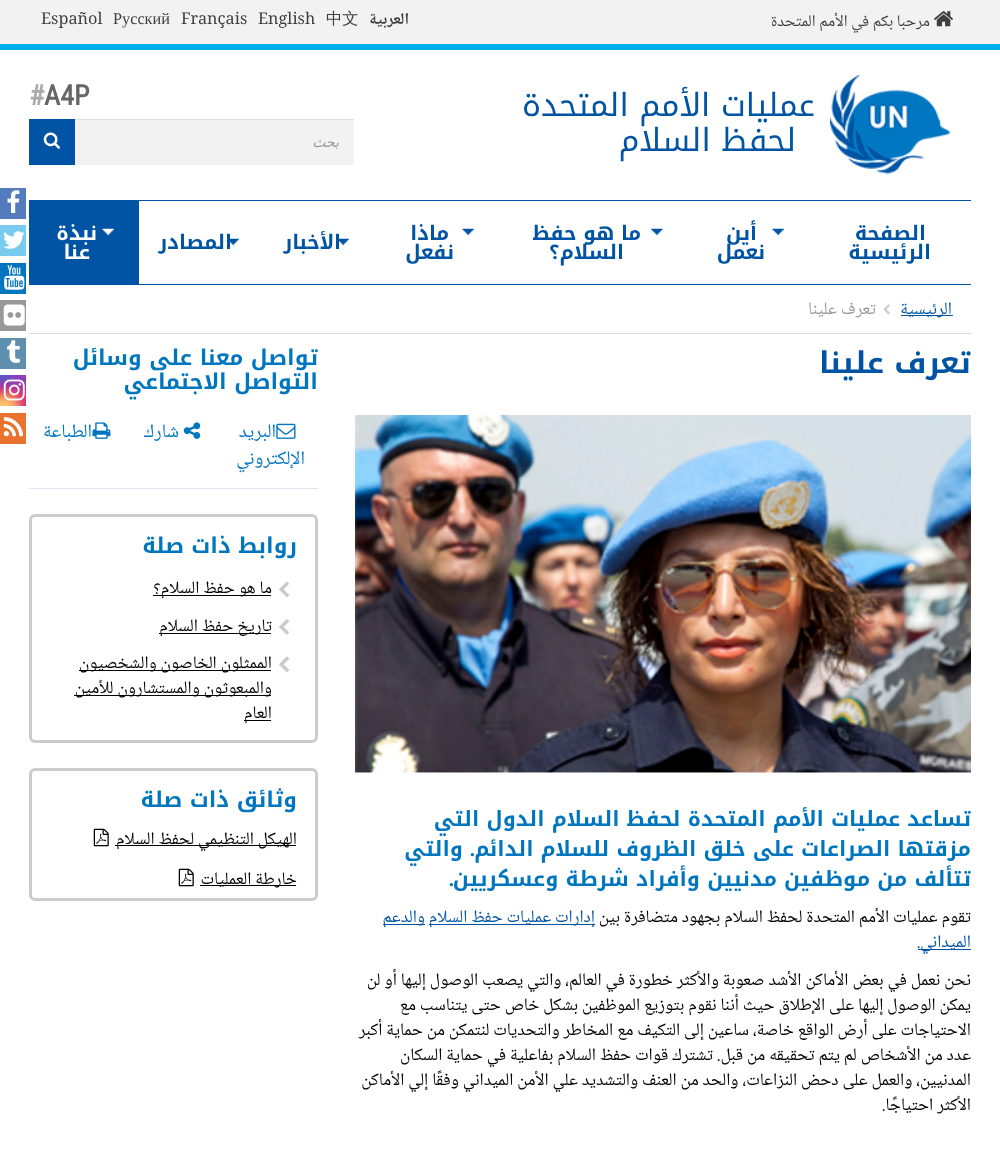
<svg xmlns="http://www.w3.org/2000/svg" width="1000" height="1161">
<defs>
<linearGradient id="g1" gradientUnits="userSpaceOnUse" x1="11" y1="375" x2="11" y2="406"><stop offset="0" stop-color="#6559ca"/><stop offset="0.3" stop-color="#bc318f"/><stop offset="0.5" stop-color="#e42e66"/><stop offset="0.7" stop-color="#fa5332"/><stop offset="1" stop-color="#ffdc80"/></linearGradient>
<radialGradient id="g2" gradientUnits="userSpaceOnUse" cx="26" cy="406" r="44"><stop offset="0" stop-color="#d9317a"/><stop offset="1" stop-color="#d9317a" stop-opacity="0"/></radialGradient>
<radialGradient id="g3" gradientUnits="userSpaceOnUse" cx="0" cy="0" r="1" gradientTransform="matrix(27 0 0 53 14 369)"><stop offset="0" stop-color="#893dc2"/><stop offset="0.5" stop-color="#893dc2" stop-opacity="0"/></radialGradient>
<radialGradient id="g4" gradientUnits="userSpaceOnUse" cx="26" cy="375" r="44"><stop offset="0" stop-color="#893dc2"/><stop offset="0.5" stop-color="#893dc2" stop-opacity="0"/></radialGradient>
<radialGradient id="g5" gradientUnits="userSpaceOnUse" cx="0" cy="0" r="1" gradientTransform="matrix(35 0 0 66 1.2 359)"><stop offset="0" stop-color="#5258cf"/><stop offset="0.5" stop-color="#5258cf" stop-opacity="0"/></radialGradient>
<radialGradient id="g6" gradientUnits="userSpaceOnUse" cx="0" cy="0" r="1" gradientTransform="matrix(44 0 0 55 -5 367)"><stop offset="0" stop-color="#5258cf"/><stop offset="0.5" stop-color="#5258cf" stop-opacity="0"/></radialGradient>
<radialGradient id="g7" gradientUnits="userSpaceOnUse" cx="-1.9" cy="419" r="52"><stop offset="0" stop-color="#feda7e"/><stop offset="0.5" stop-color="#feda7e" stop-opacity="0"/></radialGradient>
<radialGradient id="g8" gradientUnits="userSpaceOnUse" cx="5.9" cy="406" r="37"><stop offset="0" stop-color="#fec564"/><stop offset="0.5" stop-color="#fec564" stop-opacity="0"/></radialGradient>
</defs>
<rect width="100%" height="100%" fill="#fff"/>
<rect width="1000" height="44" fill="#f2f2f2"/>
<rect y="44" width="1000" height="6" fill="#00adef"/>
<image x="934" y="11" width="19" height="16" href="media/1.png"/>
<text x="930" y="26" style="font-family:Noto Naskh Arabic;font-size:16.25px;direction:rtl;fill:#3f3f3f">مرحبا بكم في الأمم المتحدة</text>
<text x="409" y="24" style="font-family:Noto Naskh Arabic;font-size:16.25px;font-weight:bold;direction:rtl;fill:#3f3f3f">العربية</text>
<text x="326" y="24" style="font-family:WenQuanYi Zen Hei;font-size:16.25px;font-weight:500;fill:#3f3f3f">中文</text>
<text x="258" y="24" style="font-family:Noto Naskh Arabic;font-size:16.25px;fill:#3f3f3f">English</text>
<text x="181" y="24" style="font-family:Noto Naskh Arabic;font-size:16.25px;fill:#3f3f3f">Français</text>
<text x="113" y="24" style="font-family:Liberation Serif;font-size:16.25px;fill:#3f3f3f">Русский</text>
<text x="41" y="24" style="font-family:Noto Naskh Arabic;font-size:16.25px;fill:#3f3f3f">Español</text>
<image x="830" y="75" width="121" height="99" href="media/2.png"/>
<text x="815" y="116" style="font-family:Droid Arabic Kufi;font-size:31.9px;direction:rtl;fill:#0054a3">عمليات الأمم المتحدة</text>
<text x="796" y="151" style="font-family:Droid Arabic Kufi;font-size:31.9px;direction:rtl;fill:#0054a3">لحفظ السلام</text>
<text x="44" y="105" style="font-family:Roboto Condensed;font-size:28px;font-weight:bold;fill:#666">A4P</text>
<text x="29" y="105" style="font-family:Roboto Condensed;font-size:28px;font-weight:bold;fill:#aaa">#</text>
<rect x="75" y="120" width="279" height="45" fill="#f2f2f2"/>
<rect x="75" y="119" width="279" height="1" fill="#e0e0e0"/>
<text x="339" y="147" style="font-family:DejaVu Sans;font-size:14px;font-style:italic;direction:rtl;fill:#999">بحث</text>
<rect x="29" y="119" width="46" height="46" fill="#0054a3"/>
<image x="43" y="132" width="17" height="17" href="media/3.png"/>
<rect x="29" y="200" width="942" height="1" fill="#0054a3"/>
<rect x="29" y="284" width="942" height="1" fill="#0054a3"/>
<text x="926" y="240" style="font-family:Droid Arabic Kufi;font-size:20px;font-weight:bold;direction:rtl;fill:#0054a3">الصفحة</text>
<text x="931" y="259" style="font-family:Droid Arabic Kufi;font-size:20px;font-weight:bold;direction:rtl;fill:#0054a3">الرئيسية</text>
<image x="772" y="228" width="12" height="8" href="media/4.png"/>
<text x="757" y="240" style="font-family:Droid Arabic Kufi;font-size:20px;font-weight:bold;direction:rtl;fill:#0054a3">أين</text>
<text x="765" y="259" style="font-family:Droid Arabic Kufi;font-size:20px;font-weight:bold;direction:rtl;fill:#0054a3">نعمل</text>
<image x="651" y="228" width="12" height="8" href="media/5.png"/>
<text x="641" y="240" style="font-family:Droid Arabic Kufi;font-size:20px;font-weight:bold;direction:rtl;fill:#0054a3">ما هو حفظ</text>
<text x="624" y="259" style="font-family:Droid Arabic Kufi;font-size:20px;font-weight:bold;direction:rtl;fill:#0054a3">السلام؟</text>
<image x="462" y="228" width="12" height="8" href="media/4.png"/>
<text x="449" y="240" style="font-family:Droid Arabic Kufi;font-size:20px;font-weight:bold;direction:rtl;fill:#0054a3">ماذا</text>
<text x="454" y="259" style="font-family:Droid Arabic Kufi;font-size:20px;font-weight:bold;direction:rtl;fill:#0054a3">نفعل</text>
<text x="341" y="249" style="font-family:Droid Arabic Kufi;font-size:20px;font-weight:bold;direction:rtl;fill:#0054a3">الأخبار</text>
<image x="338" y="238" width="11" height="8" href="media/6.png"/>
<text x="232" y="249" style="font-family:Droid Arabic Kufi;font-size:20px;font-weight:bold;direction:rtl;fill:#0054a3">المصادر</text>
<image x="229" y="238" width="10" height="8" href="media/7.png"/>
<rect x="29" y="201" width="110" height="83" fill="#0054a3"/>
<image x="102" y="228" width="12" height="8" href="media/8.png"/>
<text x="97" y="240" style="font-family:Droid Arabic Kufi;font-size:20px;font-weight:bold;direction:rtl;fill:#fff">نبذة</text>
<text x="90" y="259" style="font-family:Droid Arabic Kufi;font-size:20px;font-weight:bold;direction:rtl;fill:#fff">عنا</text>
<rect y="188" width="26" height="31" fill="#547bbc"/>
<image x="7" y="190" width="13" height="23" href="media/9.png"/>
<rect y="225" width="26" height="31" fill="#78cbef"/>
<image x="3" y="231" width="22" height="18" href="media/10.png"/>
<rect y="263" width="26" height="31" fill="#0076bf"/>
<image x="4" y="265" width="21" height="25" href="media/11.png"/>
<rect y="300" width="26" height="31" fill="#999"/>
<image x="3" y="304" width="22" height="22" href="media/12.png"/>
<rect y="338" width="26" height="31" fill="#5e8fae"/>
<image x="7" y="340" width="14" height="23" href="media/13.png"/>
<rect y="375" width="26" height="31" fill="url(#g1)"/>
<rect y="375" width="26" height="31" fill="url(#g2)"/>
<rect x="3" y="375" width="23" height="20" fill="url(#g3)"/>
<rect x="7" y="375" width="19" height="21" fill="url(#g4)"/>
<rect y="375" width="16" height="16" fill="url(#g5)"/>
<rect y="375" width="15" height="18" fill="url(#g6)"/>
<rect y="394" width="20" height="12" fill="url(#g7)"/>
<rect y="388" width="24" height="18" fill="url(#g8)"/>
<image x="3" y="379" width="22" height="22" href="media/14.png"/>
<rect y="413" width="26" height="31" fill="#e9722e"/>
<image x="3" y="417" width="20" height="20" href="media/15.png"/>
<rect x="29" y="333" width="942" height="1" fill="#ddd"/>
<rect x="901" y="315" width="52" height="1" fill="#0054a3"/>
<text x="952" y="314" style="font-family:Noto Naskh Arabic;font-size:17.5px;direction:rtl;fill:#0054a3">الرئيسية</text>
<image x="883" y="304" width="7" height="11" href="media/16.png"/>
<text x="876" y="314" style="font-family:Noto Naskh Arabic;font-size:17.5px;direction:rtl;fill:#999">تعرف علينا</text>
<text x="971" y="373" style="font-family:Droid Arabic Kufi;font-size:30px;font-weight:bold;direction:rtl;fill:#0054a3">تعرف علينا</text>
<image x="355" y="415" width="616" height="358" href="media/17.png"/>
<text x="971" y="826" style="font-family:Droid Arabic Kufi;font-size:21px;font-weight:bold;direction:rtl;fill:#0076bf">تساعد عمليات الأمم المتحدة لحفظ السلام الدول التي</text>
<text x="971" y="856" style="font-family:Droid Arabic Kufi;font-size:21px;font-weight:bold;direction:rtl;fill:#0076bf">مزقتها الصراعات على خلق الظروف للسلام الدائم</text>
<text x="475" y="856" style="font-family:Liberation Serif;font-size:21px;font-weight:bold;direction:rtl;fill:#0076bf">.</text>
<text x="463" y="856" style="font-family:Droid Arabic Kufi;font-size:21px;font-weight:bold;direction:rtl;fill:#0076bf">والتي</text>
<text x="971" y="886" style="font-family:Droid Arabic Kufi;font-size:21px;font-weight:bold;direction:rtl;fill:#0076bf">تتألف من موظفين مدنيين وأفراد شرطة وعسكريين</text>
<text x="454" y="886" style="font-family:Liberation Serif;font-size:21px;font-weight:bold;direction:rtl;fill:#0076bf">.</text>
<text x="971" y="922" style="font-family:Noto Naskh Arabic;font-size:17.5px;direction:rtl;fill:#000">تقوم عمليات الأمم المتحدة لحفظ السلام بجهود متضافرة بين</text>
<rect x="429" y="924" width="166" height="1" fill="#0054a3"/>
<text x="595" y="922" style="font-family:Noto Naskh Arabic;font-size:17.5px;direction:rtl;fill:#0054a3">إدارات عمليات حفظ السلام</text>
<rect x="383" y="924" width="42" height="1" fill="#0054a3"/>
<text x="425" y="922" style="font-family:Noto Naskh Arabic;font-size:17.5px;direction:rtl;fill:#0054a3">والدعم</text>
<rect x="918" y="949" width="53" height="1" fill="#0054a3"/>
<text x="971" y="947" style="font-family:Noto Naskh Arabic;font-size:17.5px;direction:rtl;fill:#0054a3">الميداني.</text>
<text x="971" y="985" style="font-family:Noto Naskh Arabic;font-size:17.5px;direction:rtl;fill:#000">نحن نعمل في بعض الأماكن الأشد صعوبة والأكثر خطورة في العالم، والتي يصعب الوصول إليها أو لن</text>
<text x="971" y="1010" style="font-family:Noto Naskh Arabic;font-size:17.5px;direction:rtl;fill:#000">يمكن الوصول إليها على الإطلاق حيث أننا نقوم بتوزيع الموظفين بشكل خاص حتى يتناسب مع</text>
<text x="971" y="1035" style="font-family:Noto Naskh Arabic;font-size:17.5px;direction:rtl;fill:#000">الاحتياجات على أرض الواقع خاصة، ساعين إلى التكيف مع المخاطر والتحديات لنتمكن من حماية أكبر</text>
<text x="971" y="1060" style="font-family:Noto Naskh Arabic;font-size:17.5px;direction:rtl;fill:#000">عدد من الأشخاص لم يتم تحقيقه من قبل. تشترك قوات حفظ السلام بفاعلية في حماية السكان</text>
<text x="971" y="1085" style="font-family:Noto Naskh Arabic;font-size:17.5px;direction:rtl;fill:#000">المدنيين، والعمل على دحض النزاعات، والحد من العنف والتشديد علي الأمن الميداني وفقًا إلي الأماكن</text>
<text x="971" y="1110" style="font-family:Noto Naskh Arabic;font-size:17.5px;direction:rtl;fill:#000">الأكثر احتياجًا.</text>
<text x="318" y="365" style="font-family:Droid Arabic Kufi;font-size:21.9px;font-weight:bold;direction:rtl;fill:#0076bf">تواصل معنا على وسائل</text>
<text x="318" y="389" style="font-family:Droid Arabic Kufi;font-size:21.9px;font-weight:bold;direction:rtl;fill:#0076bf">التواصل الاجتماعي</text>
<rect x="29" y="488" width="289" height="1" fill="#dee6f3"/>
<image x="276" y="423" width="20" height="16" href="media/18.png"/>
<text x="276" y="437" style="font-family:Noto Naskh Arabic;font-size:19px;direction:rtl;fill:#0076bf">البريد</text>
<text x="305" y="464" style="font-family:Noto Naskh Arabic;font-size:19px;direction:rtl;fill:#0076bf">الإلكتروني</text>
<image x="183" y="422" width="18" height="17" href="media/19.png"/>
<text x="179" y="437" style="font-family:Noto Naskh Arabic;font-size:19px;direction:rtl;fill:#0076bf">شارك</text>
<image x="92" y="422" width="19" height="17" href="media/20.png"/>
<text x="92" y="437" style="font-family:Noto Naskh Arabic;font-size:19px;direction:rtl;fill:#0076bf">الطباعة</text>
<rect x="30.5" y="515.5" width="286" height="226" rx="4.5" fill="none" stroke="#ccc" stroke-width="3"/>
<text x="297" y="553" style="font-family:Droid Arabic Kufi;font-size:21.9px;font-weight:bold;direction:rtl;fill:#0076bf">روابط ذات صلة</text>
<image x="279" y="581" width="10" height="17" href="media/21.png"/>
<rect x="153" y="595" width="118" height="1" fill="#000"/>
<text x="272" y="593" style="font-family:Noto Naskh Arabic;font-size:17.5px;direction:rtl;fill:#000">ما هو حفظ السلام؟</text>
<image x="279" y="619" width="10" height="16" href="media/22.png"/>
<rect x="159" y="633" width="112" height="1" fill="#000"/>
<text x="272" y="631" style="font-family:Noto Naskh Arabic;font-size:17.5px;direction:rtl;fill:#000">تاريخ حفظ السلام</text>
<image x="279" y="656" width="10" height="17" href="media/21.png"/>
<rect x="79" y="670" width="192" height="1" fill="#000"/>
<text x="272" y="668" style="font-family:Noto Naskh Arabic;font-size:17.5px;direction:rtl;fill:#000">الممثلون الخاصون والشخصيون</text>
<rect x="74" y="695" width="197" height="1" fill="#000"/>
<text x="272" y="693" style="font-family:Noto Naskh Arabic;font-size:17.5px;direction:rtl;fill:#000">والمبعوثون والمستشارون للأمين</text>
<rect x="244" y="720" width="27" height="1" fill="#000"/>
<text x="272" y="718" style="font-family:Noto Naskh Arabic;font-size:17.5px;direction:rtl;fill:#000">العام</text>
<rect x="30.5" y="769.5" width="286" height="130" rx="4.5" fill="none" stroke="#ccc" stroke-width="3"/>
<text x="297" y="807" style="font-family:Droid Arabic Kufi;font-size:21.9px;font-weight:bold;direction:rtl;fill:#0076bf">وثائق ذات صلة</text>
<rect x="115" y="845" width="181" height="1" fill="#000"/>
<text x="297" y="844" style="font-family:Noto Naskh Arabic;font-size:17.5px;direction:rtl;fill:#000">الهيكل التنظيمي لحفظ السلام</text>
<image x="93" y="828" width="16" height="19" href="media/23.png"/>
<rect x="200" y="885" width="96" height="1" fill="#000"/>
<text x="297" y="884" style="font-family:Noto Naskh Arabic;font-size:17.5px;direction:rtl;fill:#000">خارطة العمليات</text>
<image x="178" y="868" width="16" height="19" href="media/23.png"/>
</svg>
